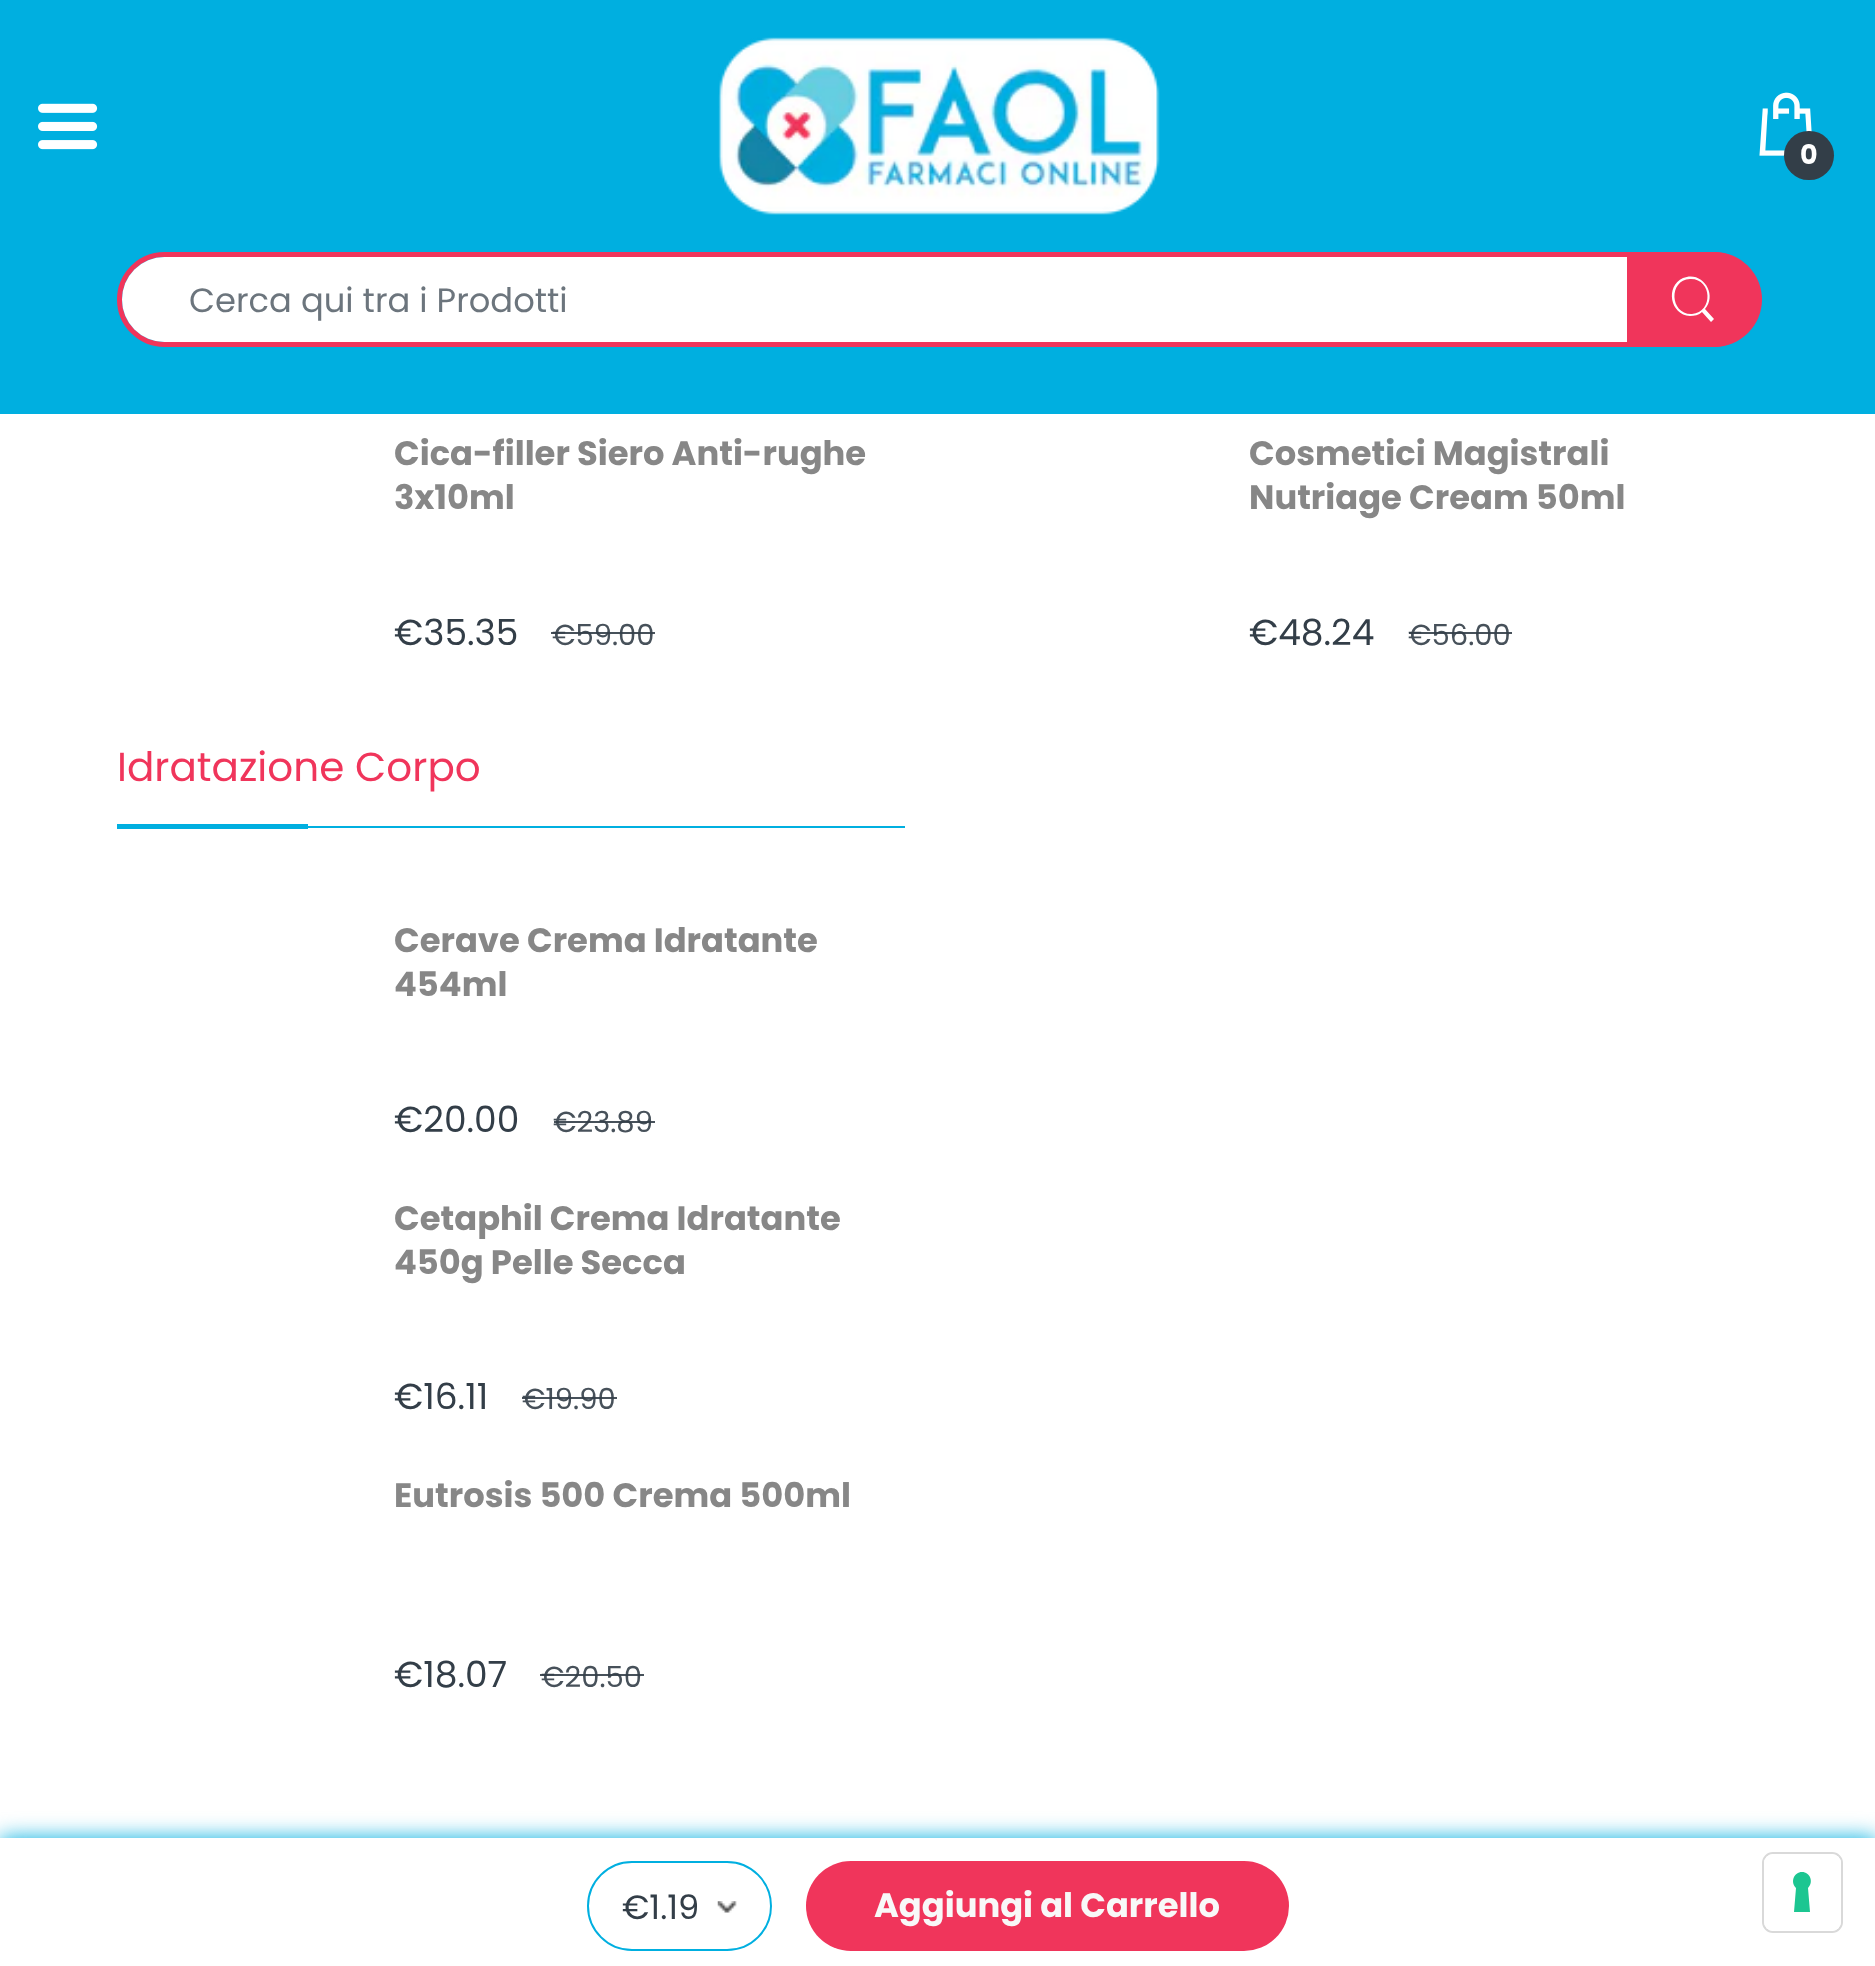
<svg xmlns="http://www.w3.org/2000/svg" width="1875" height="1966">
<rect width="100%" height="100%" fill="#fff"/>
<rect width="1875" height="414" fill="#00afe0"/>
<image x="38" y="103" width="60" height="47" href="media/1.png"/>
<image x="718" y="37" width="442" height="178" href="media/2.png"/>
<image x="1759" y="92" width="53" height="64" href="media/3.png"/>
<rect x="1784" y="131" width="50" height="49" rx="24.5" fill="#333e48"/>
<text x="1800" y="164" style="font-family:Poppins;font-size:27px;font-weight:bold;fill:#fff">0</text>
<rect x="119.5" y="254.5" width="1638" height="90" rx="45" fill="none" stroke="#f0355b" stroke-width="5"/>
<rect x="122" y="257" width="1633" height="85" rx="42.5" fill="#fff"/>
<text x="189" y="312" style="font-family:Poppins;font-size:33.75px;fill:#6c757d">Cerca qui tra i Prodotti</text>
<path d="M1627 252h87.5c26 0 47.5 21.5 47.5 47.5c0 26-21.5 47.5-47.5 47.5h-87.5z" fill="#f0355b"/>
<path d="M1683 278c19-8 35 16 22 31l9 10l-3 3l-9-10c-3 3-8 4-12 4c-20-1-25-30-7-38zm7 1c-22 1-20 36 2 35c22-2 20-36-2-35z" fill="#fff"/>
<text x="394" y="465" style="font-family:Poppins;font-size:33.75px;font-weight:bold;fill:#878787">Cica-filler Siero Anti-rughe</text>
<text x="394" y="509" style="font-family:Poppins;font-size:33.75px;font-weight:bold;fill:#878787">3x10ml</text>
<text x="394" y="645" style="font-family:Poppins;font-size:36px;fill:#333e48">€35.35</text>
<text x="552" y="645" style="font-family:Poppins;font-size:29px;fill:#47515a">€59.00</text>
<rect x="551" y="632" width="104" height="2" fill="#333e48e6"/>
<text x="1249" y="465" style="font-family:Poppins;font-size:33.75px;font-weight:bold;fill:#878787">Cosmetici Magistrali</text>
<text x="1249" y="509" style="font-family:Poppins;font-size:33.75px;font-weight:bold;fill:#878787">Nutriage Cream 50ml</text>
<text x="1249" y="645" style="font-family:Poppins;font-size:36px;fill:#333e48">€48.24</text>
<text x="1408" y="645" style="font-family:Poppins;font-size:29px;fill:#47515a">€56.00</text>
<rect x="1409" y="632" width="103" height="2" fill="#333e48e6"/>
<rect x="308" y="826" width="597" height="2" fill="#00afe0"/>
<text x="117" y="781" style="font-family:Poppins;font-size:40.5px;fill:#f0355b">Idratazione Corpo</text>
<rect x="117" y="824" width="191" height="5" fill="#00afe0"/>
<text x="394" y="952" style="font-family:Poppins;font-size:33.75px;font-weight:bold;fill:#878787">Cerave Crema Idratante</text>
<text x="394" y="996" style="font-family:Poppins;font-size:33.75px;font-weight:bold;fill:#878787">454ml</text>
<text x="394" y="1132" style="font-family:Poppins;font-size:36px;fill:#333e48">€20.00</text>
<text x="553" y="1132" style="font-family:Poppins;font-size:29px;fill:#47515a">€23.89</text>
<rect x="554" y="1121" width="101" height="2" fill="#333e48e6"/>
<text x="394" y="1230" style="font-family:Poppins;font-size:33.75px;font-weight:bold;fill:#878787">Cetaphil Crema Idratante</text>
<text x="394" y="1274" style="font-family:Poppins;font-size:33.75px;font-weight:bold;fill:#878787">450g Pelle Secca</text>
<text x="394" y="1409" style="font-family:Poppins;font-size:36px;fill:#333e48">€16.11</text>
<text x="522" y="1409" style="font-family:Poppins;font-size:29px;fill:#47515a">€19.90</text>
<rect x="522" y="1397" width="95" height="2" fill="#333e48e6"/>
<text x="394" y="1507" style="font-family:Poppins;font-size:33.75px;font-weight:bold;fill:#878787">Eutrosis 500 Crema 500ml</text>
<text x="394" y="1687" style="font-family:Poppins;font-size:36px;fill:#333e48">€18.07</text>
<text x="541" y="1687" style="font-family:Poppins;font-size:29px;fill:#47515a">€20.50</text>
<rect x="540" y="1674" width="104" height="2" fill="#333e48e6"/>
<rect y="1838" width="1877" height="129" fill="#00afe0" filter="blur(11px)"/>
<rect y="1838" width="1875" height="128" fill="#fff"/>
<image x="717" y="1901" width="20" height="12" href="media/4.png"/>
<rect x="588" y="1862" width="183" height="88" rx="44" fill="none" stroke="#00afe0" stroke-width="2"/>
<text x="622" y="1919" style="font-family:Poppins;font-size:33.75px;fill:#333e48">€1.19</text>
<rect x="806" y="1861" width="483" height="90" rx="45" fill="#f0355b"/>
<text x="874" y="1917" style="font-family:Poppins;font-size:33.75px;font-weight:bold;fill:#f8f8f8">Aggiungi al Carrello</text>
<rect x="1763" y="1853" width="79" height="79" rx="10" fill="none" stroke="#d9d9d9" stroke-width="2"/>
<rect x="1764" y="1854" width="77" height="77" rx="9" fill="#fff"/>
<path d="M1802 1872c8 0 12 10 6 16l2 24h-16l2-24c-6-6-2-16 6-16z" fill="#1cc691" fill-rule="evenodd"/>
</svg>
